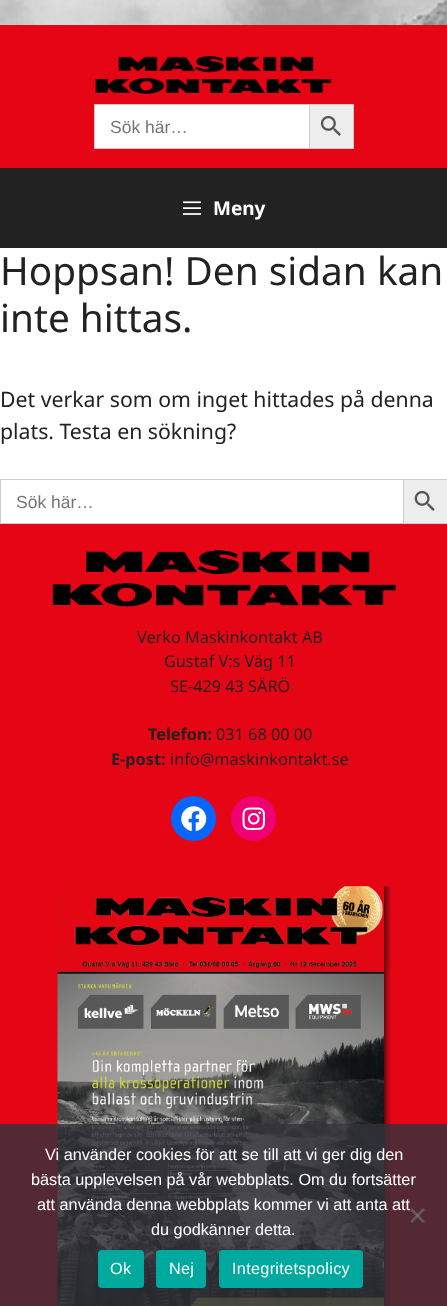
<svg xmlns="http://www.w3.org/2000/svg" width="447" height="1306">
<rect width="100%" height="100%" fill="#fff"/>
<image x="0" y="0" width="447" height="25" href="media/1.png"/>
<rect y="25" width="447" height="143" fill="#e60515"/>
<image x="95" y="56" width="237" height="38" href="media/2.png"/>
<rect x="95" y="105" width="214" height="43" fill="#fff"/>
<rect x="94" y="104" width="215" height="1" fill="#ccc"/>
<rect x="94" y="148" width="215" height="1" fill="#ccc"/>
<rect x="94" y="104" width="1" height="45" fill="#ccc"/>
<text x="110" y="133" style="font-family:Liberation Sans;font-size:17.5px;fill:#757575">Sök här…</text>
<rect x="309.5" y="104.5" width="44" height="44" fill="#ededed" stroke="#ccc"/>
<image x="320" y="115" width="21" height="21" href="media/3.png"/>
<rect y="168" width="447" height="80" fill="#222"/>
<image x="183" y="201" width="18" height="14" href="media/4.png"/>
<text x="213" y="215" style="font-family:Noto Sans;font-size:19px;font-weight:bold;fill:#fff">Meny</text>
<text x="0" y="285" style="font-family:Noto Sans;font-size:38.75px;fill:#222">Hoppsan! Den sidan kan</text>
<text x="0" y="332" style="font-family:Noto Sans;font-size:38.75px;fill:#222">inte hittas.</text>
<text x="0" y="407" style="font-family:Noto Sans;font-size:21.25px;fill:#222">Det verkar som om inget hittades på denna</text>
<text x="0" y="439" style="font-family:Noto Sans;font-size:21.25px;fill:#222">plats. Testa en sökning?</text>
<rect y="479" width="403" height="1" fill="#ccc"/>
<rect y="523" width="403" height="1" fill="#ccc"/>
<rect y="479" width="1" height="45" fill="#ccc"/>
<text x="16" y="508" style="font-family:Liberation Sans;font-size:17.5px;fill:#757575">Sök här…</text>
<rect x="403.5" y="479.5" width="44" height="44" fill="#ededed" stroke="#ccc"/>
<image x="414" y="490" width="21" height="21" href="media/5.png"/>
<rect y="524" width="447" height="782" fill="#e60515"/>
<image x="52" y="550" width="344" height="57" href="media/6.png"/>
<text x="137" y="643" style="font-family:Noto Sans;font-size:16.25px;fill:#222">Verko Maskinkontakt AB</text>
<text x="164" y="667" style="font-family:Noto Sans;font-size:16.25px;fill:#222">Gustaf V:s Väg 11</text>
<text x="170" y="692" style="font-family:Noto Sans;font-size:16.25px;fill:#222">SE-429 43 SÄRÖ</text>
<text x="148" y="740" style="font-family:Noto Sans;font-size:16.25px;font-weight:bold;fill:#222">Telefon:</text>
<text x="216" y="740" style="font-family:Noto Sans;font-size:16.25px;fill:#222">031 68 00 00</text>
<text x="111" y="765" style="font-family:Noto Sans;font-size:16.25px;font-weight:bold;fill:#222">E-post:</text>
<text x="170" y="765" style="font-family:Noto Sans;font-size:16.25px;fill:#222">info@maskinkontakt.se</text>
<circle cx="193.5" cy="818.5" r="22.5" fill="#0866ff"/>
<image x="181" y="806" width="26" height="26" href="media/7.png"/>
<circle cx="253.5" cy="818.5" r="22.5" fill="#f00075"/>
<image x="242" y="807" width="23" height="23" href="media/8.png"/>
<image x="57" y="886" width="334" height="420" href="media/9.png"/>
<rect y="1124" width="447" height="182" fill="#32323acf"/>
<text x="45" y="1160" style="font-family:Liberation Sans;font-size:16.25px;fill:#fff">Vi använder cookies för att se till att vi ger dig den</text>
<text x="31" y="1185" style="font-family:Liberation Sans;font-size:16.25px;fill:#fff">bästa upplevelsen på vår webbplats. Om du fortsätter</text>
<text x="37" y="1210" style="font-family:Liberation Sans;font-size:16.25px;fill:#fff">att använda denna webbplats kommer vi att anta att</text>
<text x="151" y="1235" style="font-family:Liberation Sans;font-size:16.25px;fill:#fff">du godkänner detta.</text>
<path d="M423 1208l2 2l-13 13l-2-1.5z" fill="#6a5559"/>
<path d="M410 1210l2-2l13 13.5l-2 1.5z" fill="#80808080"/>
<rect x="98" y="1250" width="46" height="38" rx="4" fill="#00a99d"/>
<text x="110" y="1274" style="font-family:Liberation Sans;font-size:16.25px;letter-spacing:0.3px;fill:#fff">Ok</text>
<rect x="156" y="1250" width="50" height="38" rx="4" fill="#00a99d"/>
<text x="169" y="1274" style="font-family:Liberation Sans;font-size:16.25px;letter-spacing:0.3px;fill:#fff">Nej</text>
<rect x="219" y="1250" width="144" height="38" rx="4" fill="#00a99d"/>
<text x="232" y="1274" style="font-family:Liberation Sans;font-size:16.25px;letter-spacing:0.3px;fill:#fff">Integritetspolicy</text>
</svg>
